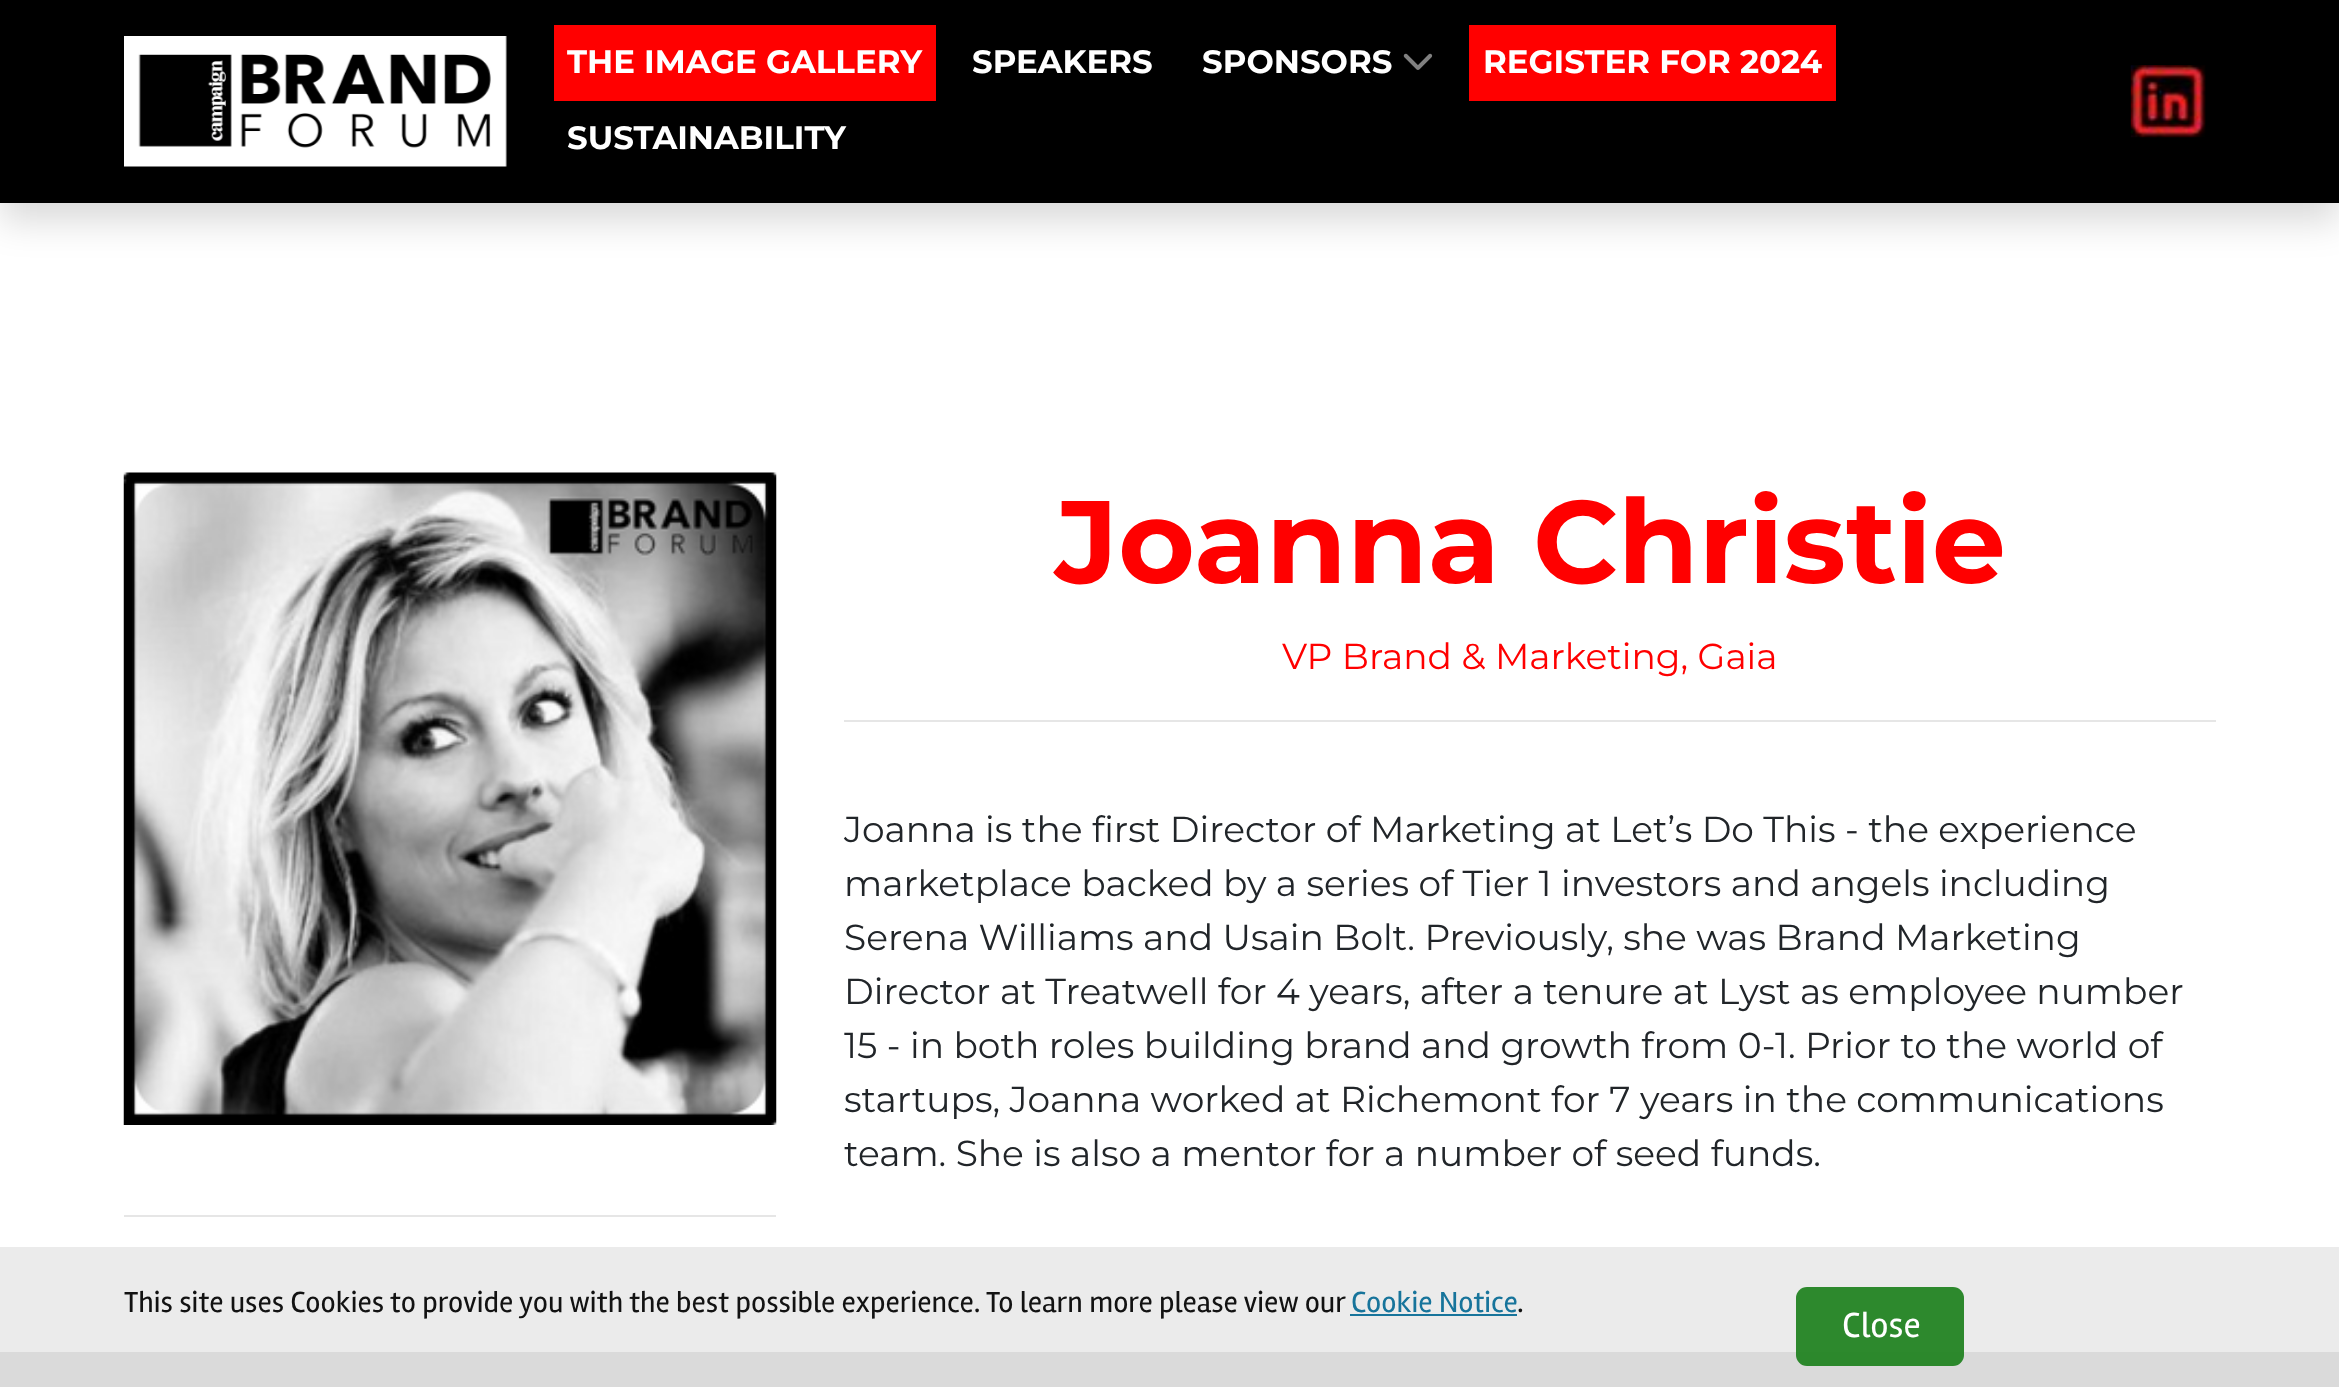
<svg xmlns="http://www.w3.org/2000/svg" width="2339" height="1387">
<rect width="100%" height="100%" fill="#fff"/>
<rect y="1247" width="2339" height="105" fill="#ebebeb"/>
<rect y="18" width="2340" height="203" fill="#00000026" filter="blur(18px)"/>
<rect width="2339" height="203" fill="#000"/>
<image x="124" y="36" width="383" height="131" href="media/1.png"/>
<rect x="554" y="25" width="382" height="76" fill="#f00"/>
<text x="567" y="73" style="font-family:Montserrat;font-size:32.4px;font-weight:bold;fill:#fff">THE IMAGE GALLERY</text>
<text x="972" y="73" style="font-family:Montserrat;font-size:32.4px;font-weight:bold;fill:#fff">SPEAKERS</text>
<text x="1202" y="73" style="font-family:Montserrat;font-size:32.4px;font-weight:bold;fill:#fff">SPONSORS</text>
<image x="1403" y="53" width="30" height="17" href="media/2.png"/>
<rect x="1469" y="25" width="367" height="76" fill="#f00"/>
<text x="1483" y="73" style="font-family:Montserrat;font-size:32.4px;font-weight:bold;fill:#fff">REGISTER FOR 2024</text>
<text x="567" y="149" style="font-family:Montserrat;font-size:32.4px;font-weight:bold;fill:#fff">SUSTAINABILITY</text>
<image x="2130" y="65" width="76" height="73" href="media/3.png"/>
<image x="123" y="472" width="654" height="653" href="media/4.png"/>
<rect x="124" y="1215" width="652" height="2" fill="#e6e6e6"/>
<text x="1055" y="583" style="font-family:Montserrat;font-size:117px;font-weight:bold;fill:#f00">Joanna Christie</text>
<text x="1282" y="669" style="font-family:Montserrat;font-size:36px;fill:#f00">VP Brand &amp; Marketing, Gaia</text>
<rect x="844" y="720" width="1372" height="2" fill="#e6e6e6"/>
<text x="844" y="842" style="font-family:Montserrat;font-size:36px;fill:#212529">Joanna is the first Director of Marketing at Let’s Do This - the experience</text>
<text x="844" y="896" style="font-family:Montserrat;font-size:36px;fill:#212529">marketplace backed by a series of Tier 1 investors and angels including</text>
<text x="844" y="950" style="font-family:Montserrat;font-size:36px;fill:#212529">Serena Williams and Usain Bolt. Previously, she was Brand Marketing</text>
<text x="844" y="1004" style="font-family:Montserrat;font-size:36px;fill:#212529">Director at Treatwell for 4 years, after a tenure at Lyst as employee number</text>
<text x="844" y="1058" style="font-family:Montserrat;font-size:36px;fill:#212529">15 - in both roles building brand and growth from 0-1. Prior to the world of</text>
<text x="844" y="1112" style="font-family:Montserrat;font-size:36px;fill:#212529">startups, Joanna worked at Richemont for 7 years in the communications</text>
<text x="844" y="1166" style="font-family:Montserrat;font-size:36px;fill:#212529">team. She is also a mentor for a number of seed funds.</text>
<text x="124" y="1312" style="font-family:Rambla;font-size:29.95px;fill:#121212">This site uses Cookies to provide you with the best possible experience. To learn more please view our</text>
<text x="1351" y="1312" style="font-family:Rambla;font-size:29.95px;fill:#17749b">Cookie Notice</text>
<rect x="1350" y="1314" width="167" height="2" fill="#17749b"/>
<text x="1517" y="1312" style="font-family:Rambla;font-size:29.95px;fill:#121212">.</text>
<rect y="1352" width="2339" height="35" fill="#dadada"/>
<rect x="1796" y="1287" width="168" height="79" rx="11" fill="#1e811eed"/>
<text x="1842" y="1337" style="font-family:Rambla;font-size:36px;fill:#fff">Close</text>
</svg>
